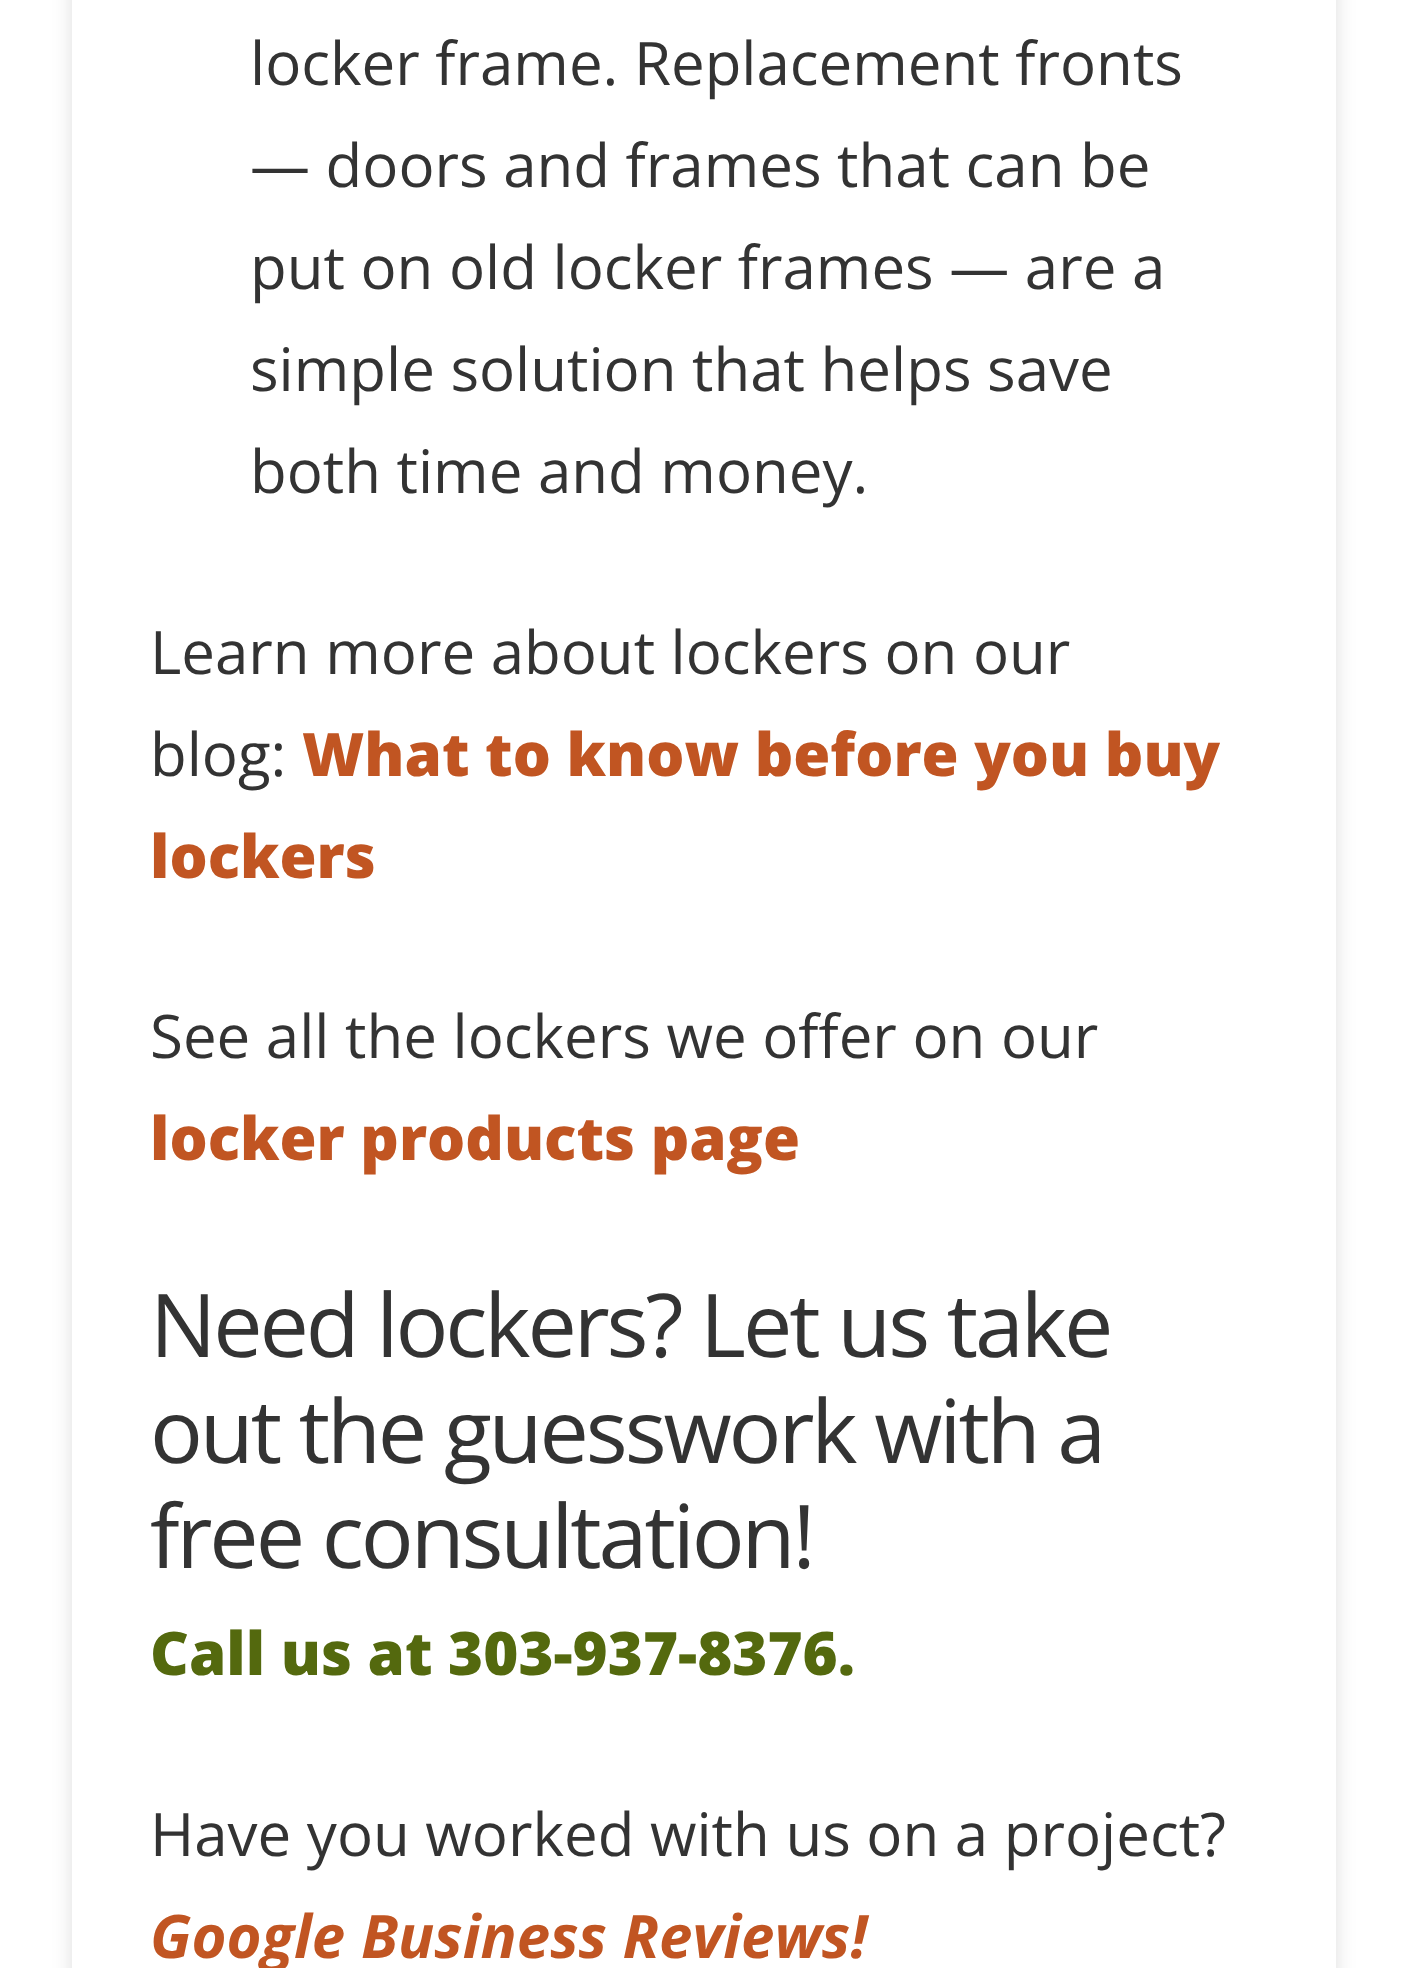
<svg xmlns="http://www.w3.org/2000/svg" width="1407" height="1968">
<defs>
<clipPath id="clip1"><path d="M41 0h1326v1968h-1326zm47-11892h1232c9 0 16 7 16 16v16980c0 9-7 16-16 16h-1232c-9 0-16-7-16-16v-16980c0-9 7-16 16-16z" clip-rule="evenodd"/></clipPath>
</defs>
<rect width="100%" height="100%" fill="#fff"/>
<g clip-path="url(#clip1)">
<rect x="72" y="-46" width="1264" height="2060" rx="16" fill="#00000021" filter="blur(10px)"/>
</g>
<text x="250" y="85" style="font-family:Open Sans;font-size:60px;fill:#333">locker frame. Replacement fronts</text>
<text x="250" y="187" style="font-family:Open Sans;font-size:60px;fill:#333">— doors and frames that can be</text>
<text x="250" y="289" style="font-family:Open Sans;font-size:60px;fill:#333">put on old locker frames — are a</text>
<text x="250" y="391" style="font-family:Open Sans;font-size:60px;fill:#333">simple solution that helps save</text>
<text x="250" y="493" style="font-family:Open Sans;font-size:60px;fill:#333">both time and money.</text>
<text x="150" y="674" style="font-family:Open Sans;font-size:60px;fill:#333">Learn more about lockers on our</text>
<text x="150" y="776" style="font-family:Open Sans;font-size:60px;fill:#333">blog:</text>
<text x="302" y="776" style="font-family:Open Sans;font-size:60px;font-weight:800;fill:#c15522">What to know before you buy</text>
<text x="150" y="878" style="font-family:Open Sans;font-size:60px;font-weight:800;fill:#c15522">lockers</text>
<text x="150" y="1058" style="font-family:Open Sans;font-size:60px;fill:#333">See all the lockers we offer on our</text>
<text x="150" y="1160" style="font-family:Open Sans;font-size:60px;font-weight:800;fill:#c15522">locker products page</text>
<text x="150" y="1357" style="font-family:Open Sans;font-size:88px;letter-spacing:-3.1px;fill:#333">Need lockers? Let us take</text>
<text x="150" y="1463" style="font-family:Open Sans;font-size:88px;letter-spacing:-3.1px;fill:#333">out the guesswork with a</text>
<text x="150" y="1568" style="font-family:Open Sans;font-size:88px;letter-spacing:-3.1px;fill:#333">free consultation!</text>
<text x="150" y="1675" style="font-family:Open Sans;font-size:60px;font-weight:800;fill:#54690e">Call us at 303-937-8376.</text>
<text x="150" y="1856" style="font-family:Open Sans;font-size:60px;fill:#333">Have you worked with us on a project?</text>
<text x="150" y="1958" style="font-family:Open Sans;font-size:60px;font-weight:bold;font-style:italic;fill:#c15522">Google Business Reviews!</text>
</svg>
